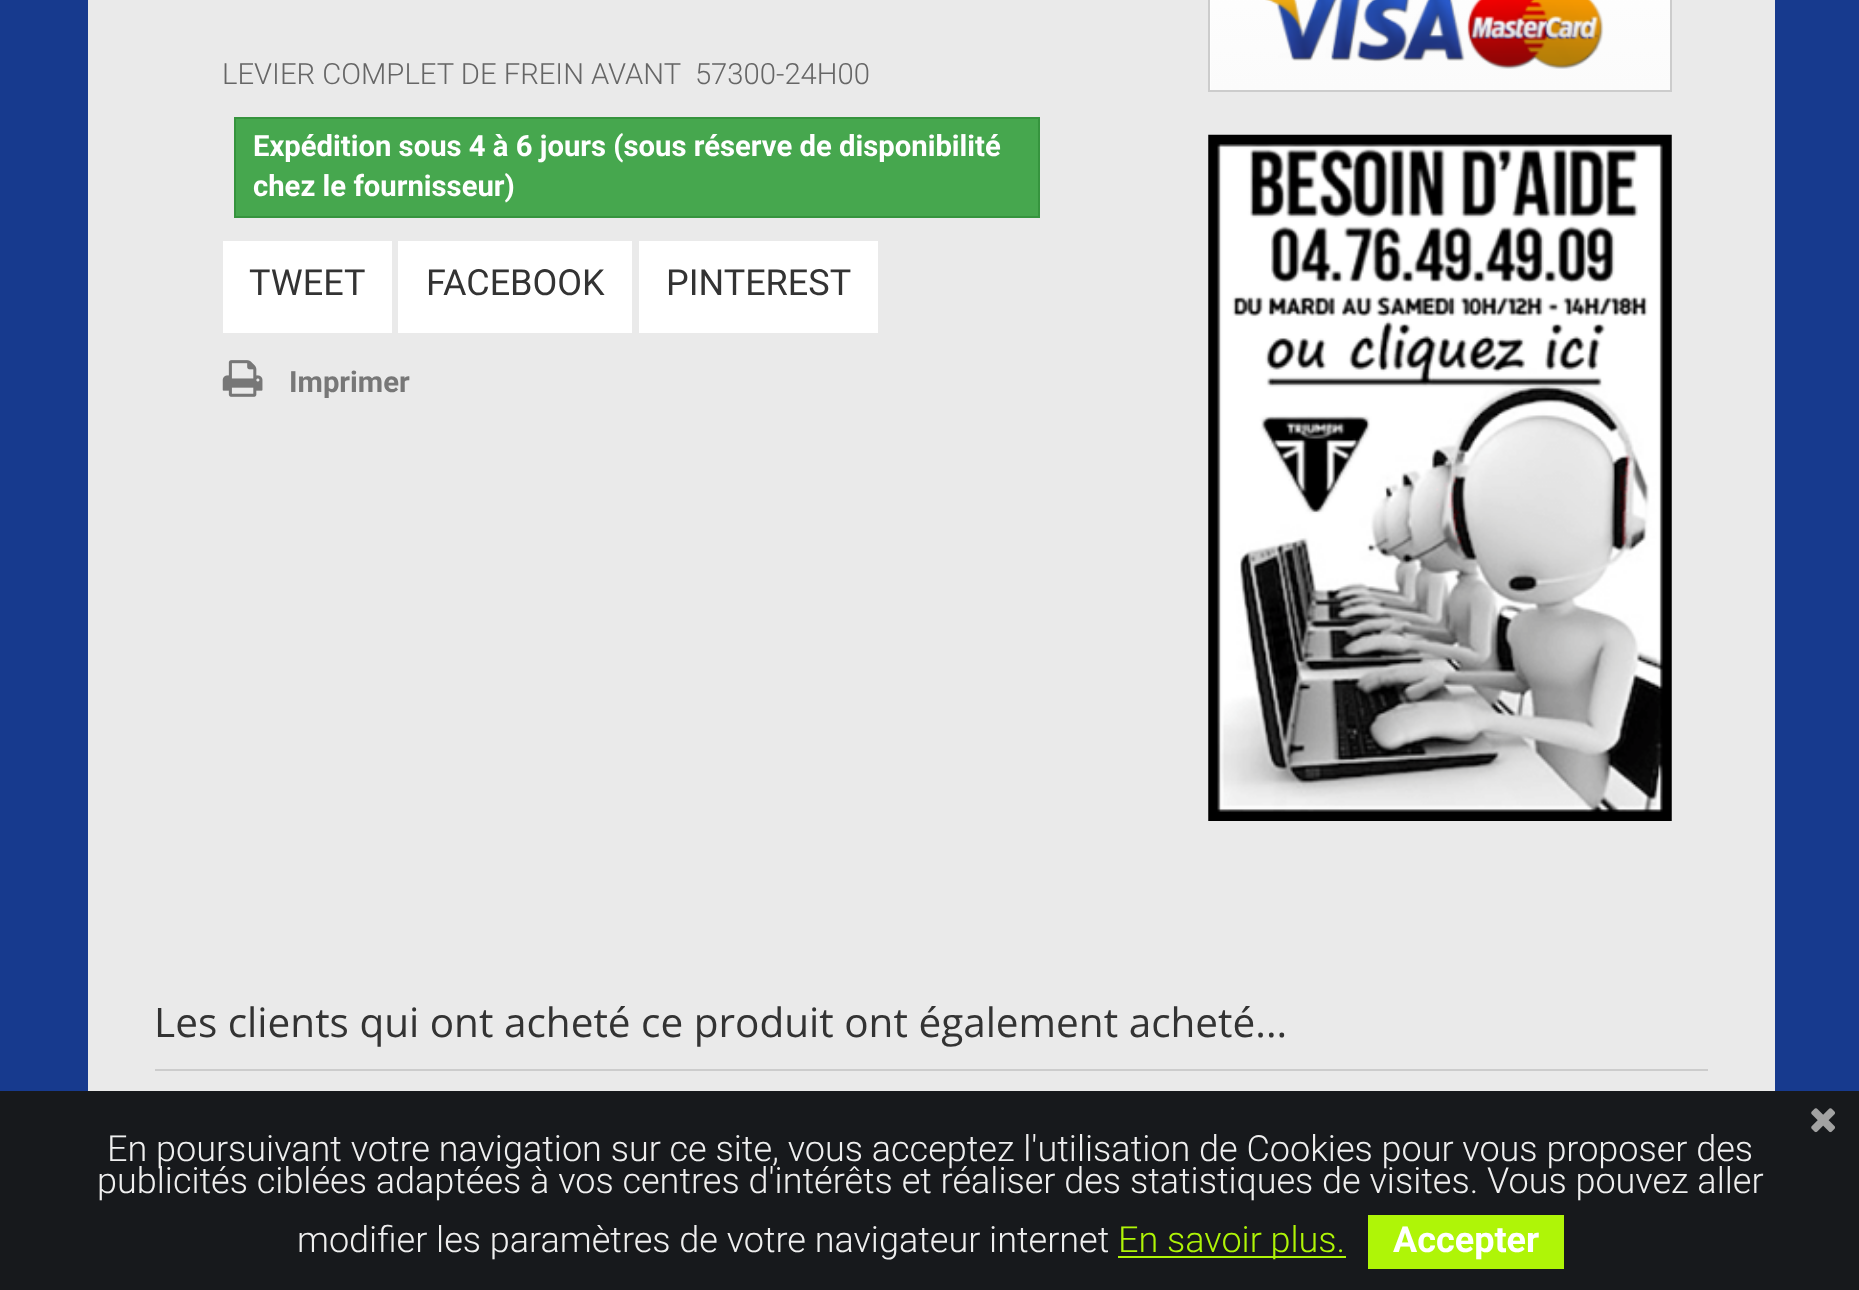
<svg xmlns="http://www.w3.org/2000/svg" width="1859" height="1290">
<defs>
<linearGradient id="g1" gradientUnits="userSpaceOnUse" x1="1440" y1="-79" x2="1440" y2="90"><stop offset="0" stop-color="#fff"/><stop offset="1" stop-color="#fbfbfb"/></linearGradient>
</defs>
<rect width="100%" height="100%" fill="#173a8e"/>
<rect x="88" width="1687" height="1091" fill="#eaeaea"/>
<text x="222" y="84" style="font-family:Roboto;font-size:29.25px;font-weight:300;fill:#666" xml:space="preserve">LEVIER COMPLET DE FREIN AVANT  57300-24H00</text>
<rect x="235" y="118" width="804" height="99" fill="#46a74e" stroke="#36943e" stroke-width="2"/>
<text x="253" y="156" style="font-family:Roboto;font-size:29.25px;font-weight:bold;fill:#fff">Expédition sous 4 à 6 jours (sous réserve de disponibilité</text>
<text x="253" y="196" style="font-family:Roboto;font-size:29.25px;font-weight:bold;fill:#fff">chez le fournisseur)</text>
<rect x="223" y="241" width="169" height="92" fill="#fff"/>
<text x="249" y="295" style="font-family:Roboto;font-size:36px;fill:#333">TWEET</text>
<rect x="398" y="241" width="234" height="92" fill="#fff"/>
<text x="426" y="295" style="font-family:Roboto;font-size:36px;fill:#333">FACEBOOK</text>
<rect x="639" y="241" width="239" height="92" fill="#fff"/>
<text x="666" y="295" style="font-family:Roboto;font-size:36px;fill:#333">PINTEREST</text>
<image x="222" y="360" width="41" height="37" href="media/1.png"/>
<text x="289" y="392" style="font-family:Roboto;font-size:29.25px;font-weight:bold;fill:#777">Imprimer</text>
<rect x="1210" width="1" height="90" fill="#fefefe"/>
<rect x="1209" y="-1" width="462" height="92" fill="none" stroke="#ccc" stroke-width="2"/>
<rect x="1211" width="459" height="90" fill="url(#g1)"/>
<image x="1265" y="0" width="339" height="69" href="media/2.png"/>
<image x="1208" y="134" width="464" height="687" href="media/3.png"/>
<rect x="155" y="1069" width="1553" height="2" fill="#ccc"/>
<text x="154" y="1037" style="font-family:Open Sans;font-size:40.5px;fill:#333">Les clients qui ont acheté ce produit ont également acheté...</text>
<rect y="1091" width="1859" height="199" fill="#17191c"/>
<image x="1811" y="1108" width="24" height="25" href="media/4.png"/>
<text x="107" y="1161" style="font-family:Roboto;font-size:36px;font-weight:300;fill:#efefef">En poursuivant votre navigation sur ce site, vous acceptez l'utilisation de Cookies pour vous proposer des</text>
<text x="97" y="1193" style="font-family:Roboto;font-size:36px;font-weight:300;fill:#efefef">publicités ciblées adaptées à vos centres d'intérêts et réaliser des statistiques de visites. Vous pouvez aller</text>
<text x="297" y="1252" style="font-family:Roboto;font-size:36px;font-weight:300;fill:#efefef">modifier les paramètres de votre navigateur internet</text>
<rect x="1118" y="1256" width="228" height="2" fill="#aff507"/>
<text x="1118" y="1252" style="font-family:Roboto;font-size:36px;font-weight:300;fill:#aff507">En savoir plus.</text>
<rect x="1368" y="1215" width="196" height="54" fill="#aff507"/>
<text x="1393" y="1252" style="font-family:Roboto;font-size:36px;font-weight:bold;fill:#fff">Accepter</text>
</svg>
